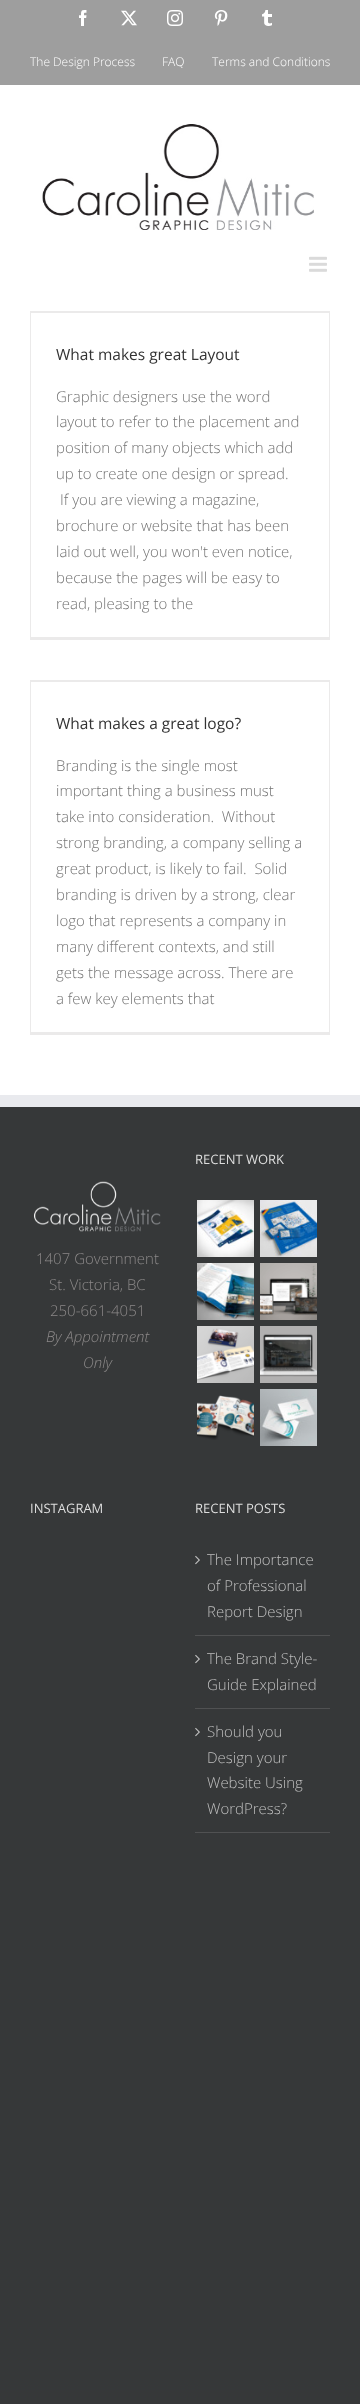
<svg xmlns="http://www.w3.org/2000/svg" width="360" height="2404">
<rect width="100%" height="100%" fill="#fff"/>
<rect width="360" height="85" fill="#9e9e9e"/>
<image x="79" y="10" width="8" height="16" href="media/1.png"/>
<image x="121" y="10" width="16" height="16" href="media/2.png"/>
<image x="167" y="10" width="16" height="16" href="media/3.png"/>
<image x="214" y="10" width="14" height="16" href="media/4.png"/>
<image x="262" y="10" width="10" height="16" href="media/5.png"/>
<text x="30" y="66" style="font-family:Open Sans;font-size:12px;font-weight:300;fill:#fff">The Design Process</text>
<text x="162" y="66" style="font-family:Open Sans;font-size:12px;font-weight:300;fill:#fff">FAQ</text>
<text x="212" y="66" style="font-family:Open Sans;font-size:12px;font-weight:300;fill:#fff">Terms and Conditions</text>
<image x="42" y="124" width="272" height="106" href="media/6.png"/>
<image x="309" y="256" width="18" height="16" href="media/7.png"/>
<rect x="30" y="311" width="300" height="1" fill="#ebeaea"/>
<rect x="329" y="311" width="1" height="329" fill="#ebeaea"/>
<rect x="30" y="637" width="300" height="3" fill="#ebeaea"/>
<rect x="30" y="311" width="1" height="329" fill="#ebeaea"/>
<rect x="31" y="312" width="298" height="1" fill="#ebeaea"/>
<text x="56" y="360" style="font-family:Open Sans;font-size:15.5px;fill:#333">What makes great Layout</text>
<text x="56" y="402" style="font-family:Open Sans;font-size:15px;font-weight:300;fill:#747474">Graphic designers use the word</text>
<text x="56" y="427" style="font-family:Open Sans;font-size:15px;font-weight:300;fill:#747474">layout to refer to the placement and</text>
<text x="56" y="453" style="font-family:Open Sans;font-size:15px;font-weight:300;fill:#747474">position of many objects which add</text>
<text x="56" y="479" style="font-family:Open Sans;font-size:15px;font-weight:300;fill:#747474">up to create one design or spread.</text>
<text x="60" y="505" style="font-family:Open Sans;font-size:15px;font-weight:300;fill:#747474">If you are viewing a magazine,</text>
<text x="56" y="531" style="font-family:Open Sans;font-size:15px;font-weight:300;fill:#747474">brochure or website that has been</text>
<text x="56" y="557" style="font-family:Open Sans;font-size:15px;font-weight:300;fill:#747474">laid out well, you won't even notice,</text>
<text x="56" y="583" style="font-family:Open Sans;font-size:15px;font-weight:300;fill:#747474">because the pages will be easy to</text>
<text x="56" y="609" style="font-family:Open Sans;font-size:15px;font-weight:300;fill:#747474">read, pleasing to the</text>
<rect x="30" y="680" width="300" height="1" fill="#ebeaea"/>
<rect x="329" y="680" width="1" height="355" fill="#ebeaea"/>
<rect x="30" y="1032" width="300" height="3" fill="#ebeaea"/>
<rect x="30" y="680" width="1" height="355" fill="#ebeaea"/>
<rect x="31" y="681" width="298" height="1" fill="#ebeaea"/>
<text x="56" y="729" style="font-family:Open Sans;font-size:15.5px;fill:#333">What makes a great logo?</text>
<text x="56" y="771" style="font-family:Open Sans;font-size:15px;font-weight:300;fill:#747474">Branding is the single most</text>
<text x="56" y="796" style="font-family:Open Sans;font-size:15px;font-weight:300;fill:#747474">important thing a business must</text>
<text x="56" y="822" style="font-family:Open Sans;font-size:15px;font-weight:300;fill:#747474" xml:space="preserve">take into consideration.  Without</text>
<text x="56" y="848" style="font-family:Open Sans;font-size:15px;font-weight:300;fill:#747474">strong branding, a company selling a</text>
<text x="56" y="874" style="font-family:Open Sans;font-size:15px;font-weight:300;fill:#747474" xml:space="preserve">great product, is likely to fail.  Solid</text>
<text x="56" y="900" style="font-family:Open Sans;font-size:15px;font-weight:300;fill:#747474">branding is driven by a strong, clear</text>
<text x="56" y="926" style="font-family:Open Sans;font-size:15px;font-weight:300;fill:#747474">logo that represents a company in</text>
<text x="56" y="952" style="font-family:Open Sans;font-size:15px;font-weight:300;fill:#747474">many different contexts, and still</text>
<text x="56" y="978" style="font-family:Open Sans;font-size:15px;font-weight:300;fill:#747474">gets the message across. There are</text>
<text x="56" y="1004" style="font-family:Open Sans;font-size:15px;font-weight:300;fill:#747474">a few key elements that</text>
<rect y="1107" width="360" height="1297" fill="#363839"/>
<rect y="1095" width="360" height="12" fill="#e9eaee"/>
<text x="195" y="1164" style="font-family:Open Sans;font-size:13px;fill:#ddd">RECENT WORK</text>
<image x="197" y="1200" width="57" height="57" href="media/8.png"/>
<image x="260" y="1200" width="57" height="57" href="media/9.png"/>
<image x="197" y="1263" width="57" height="57" href="media/10.png"/>
<image x="260" y="1263" width="57" height="57" href="media/11.png"/>
<image x="197" y="1326" width="57" height="57" href="media/12.png"/>
<image x="260" y="1326" width="57" height="57" href="media/13.png"/>
<image x="197" y="1395" width="57" height="45" href="media/14.png"/>
<image x="260" y="1389" width="57" height="57" href="media/15.png"/>
<image x="34" y="1181" width="127" height="51" href="media/16.png"/>
<text x="36" y="1264" style="font-family:Open Sans;font-size:15px;font-weight:300;fill:#8c8989">1407 Government</text>
<text x="49" y="1290" style="font-family:Open Sans;font-size:15px;font-weight:300;fill:#8c8989">St. Victoria, BC</text>
<text x="50" y="1316" style="font-family:Open Sans;font-size:15px;font-weight:300;fill:#8c8989">250-661-4051</text>
<text x="46" y="1342" style="font-family:Open Sans;font-size:15px;font-weight:300;font-style:italic;fill:#8c8989">By Appointment</text>
<text x="83" y="1368" style="font-family:Open Sans;font-size:15px;font-weight:300;font-style:italic;fill:#8c8989">Only</text>
<text x="30" y="1513" style="font-family:Open Sans;font-size:13px;fill:#ddd">INSTAGRAM</text>
<text x="195" y="1513" style="font-family:Open Sans;font-size:13px;fill:#ddd">RECENT POSTS</text>
<rect x="195" y="1635" width="135" height="1" fill="#505152"/>
<image x="195" y="1555" width="5" height="10" href="media/17.png"/>
<text x="207" y="1565" style="font-family:Open Sans;font-size:15px;font-weight:300;fill:#bfbfbf">The Importance</text>
<text x="207" y="1591" style="font-family:Open Sans;font-size:15px;font-weight:300;fill:#bfbfbf">of Professional</text>
<text x="207" y="1617" style="font-family:Open Sans;font-size:15px;font-weight:300;fill:#bfbfbf">Report Design</text>
<rect x="195" y="1708" width="135" height="1" fill="#505152"/>
<image x="195" y="1654" width="5" height="10" href="media/17.png"/>
<text x="207" y="1664" style="font-family:Open Sans;font-size:15px;font-weight:300;fill:#bfbfbf">The Brand Style-</text>
<text x="207" y="1690" style="font-family:Open Sans;font-size:15px;font-weight:300;fill:#bfbfbf">Guide Explained</text>
<rect x="195" y="1832" width="135" height="1" fill="#505152"/>
<image x="195" y="1727" width="5" height="10" href="media/17.png"/>
<text x="207" y="1737" style="font-family:Open Sans;font-size:15px;font-weight:300;fill:#bfbfbf">Should you</text>
<text x="207" y="1763" style="font-family:Open Sans;font-size:15px;font-weight:300;fill:#bfbfbf">Design your</text>
<text x="207" y="1788" style="font-family:Open Sans;font-size:15px;font-weight:300;fill:#bfbfbf">Website Using</text>
<text x="207" y="1814" style="font-family:Open Sans;font-size:15px;font-weight:300;fill:#bfbfbf">WordPress?</text>
</svg>
